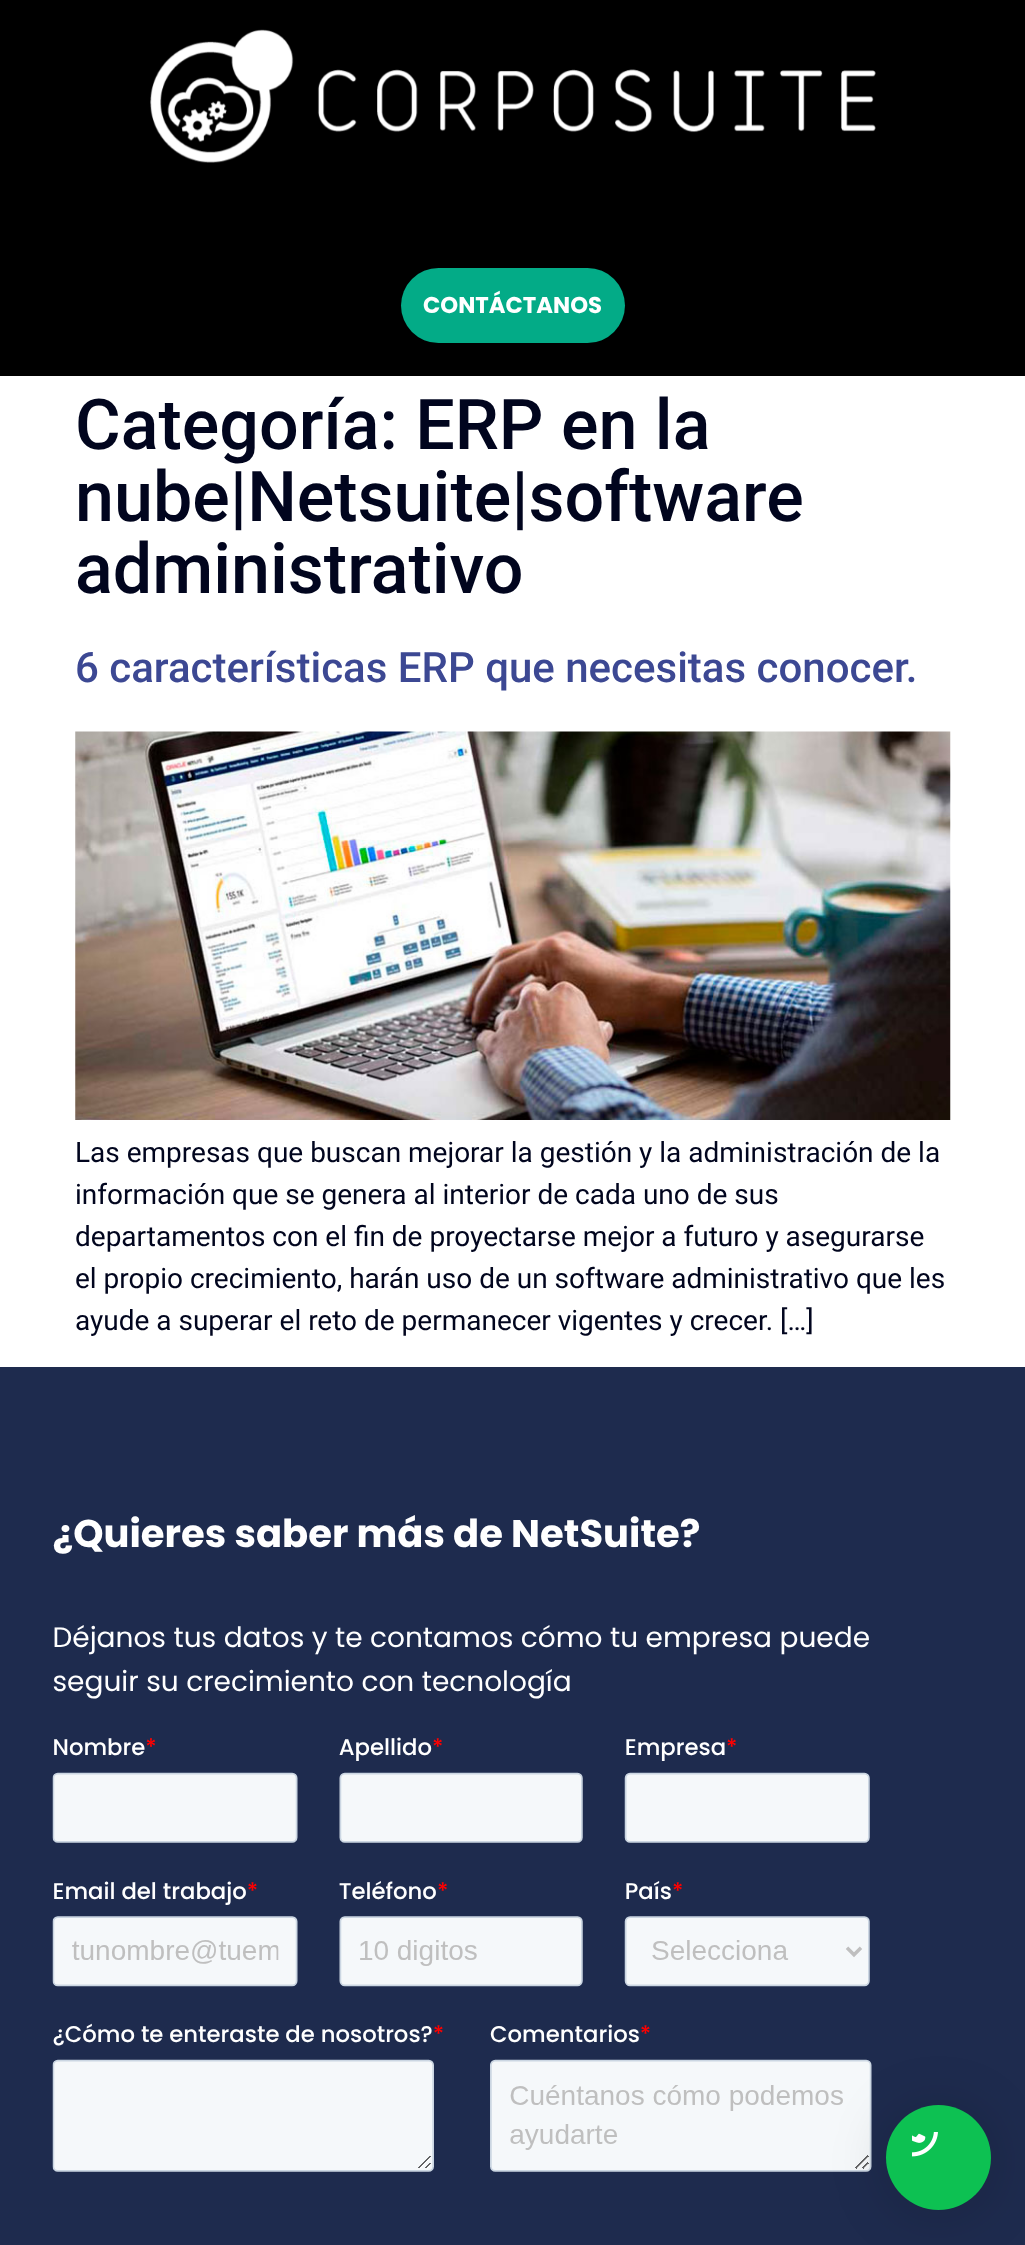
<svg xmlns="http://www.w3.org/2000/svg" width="1025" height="2245">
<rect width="100%" height="100%" fill="#fff"/>
<rect width="1025" height="376" fill="#000"/>
<image x="150" y="29" width="726" height="134" href="media/1.png"/>
<rect x="401" y="268" width="224" height="75" rx="37.5" fill="#03ab87"/>
<text x="423" y="313" style="font-family:Poppins;font-size:22.75px;font-weight:bold;fill:#fff">CONTÁCTANOS</text>
<text x="75" y="449" style="font-family:Roboto;font-size:70px;font-weight:500;fill:#01051e">Categoría: ERP en la</text>
<text x="75" y="521" style="font-family:Roboto;font-size:70px;font-weight:500;fill:#01051e">nube|Netsuite|software</text>
<text x="75" y="593" style="font-family:Roboto;font-size:70px;font-weight:500;fill:#01051e">administrativo</text>
<text x="75" y="682" style="font-family:Roboto;font-size:42px;font-weight:500;fill:#3c4893">6 características ERP que necesitas conocer.</text>
<image x="75" y="731" width="876" height="389" href="media/2.png"/>
<text x="75" y="1162" style="font-family:Roboto;font-size:28px;fill:#01051e">Las empresas que buscan mejorar la gestión y la administración de la</text>
<text x="75" y="1204" style="font-family:Roboto;font-size:28px;fill:#01051e">información que se genera al interior de cada uno de sus</text>
<text x="75" y="1246" style="font-family:Roboto;font-size:28px;fill:#01051e">departamentos con el fin de proyectarse mejor a futuro y asegurarse</text>
<text x="75" y="1288" style="font-family:Roboto;font-size:28px;fill:#01051e">el propio crecimiento, harán uso de un software administrativo que les</text>
<text x="75" y="1330" style="font-family:Roboto;font-size:28px;fill:#01051e">ayude a superar el reto de permanecer vigentes y crecer. […]</text>
<rect y="1367" width="1025" height="878" fill="#1e2b4e"/>
<image x="52" y="1515" width="820" height="657" href="media/3.png"/>
<rect x="886" y="2109" width="105" height="105" rx="52.5" fill="#00000029" filter="blur(28px)"/>
<circle cx="938.5" cy="2157.5" r="52.5" fill="#0dc152"/>
<image x="912" y="2132" width="26" height="25" href="media/4.png"/>
</svg>
